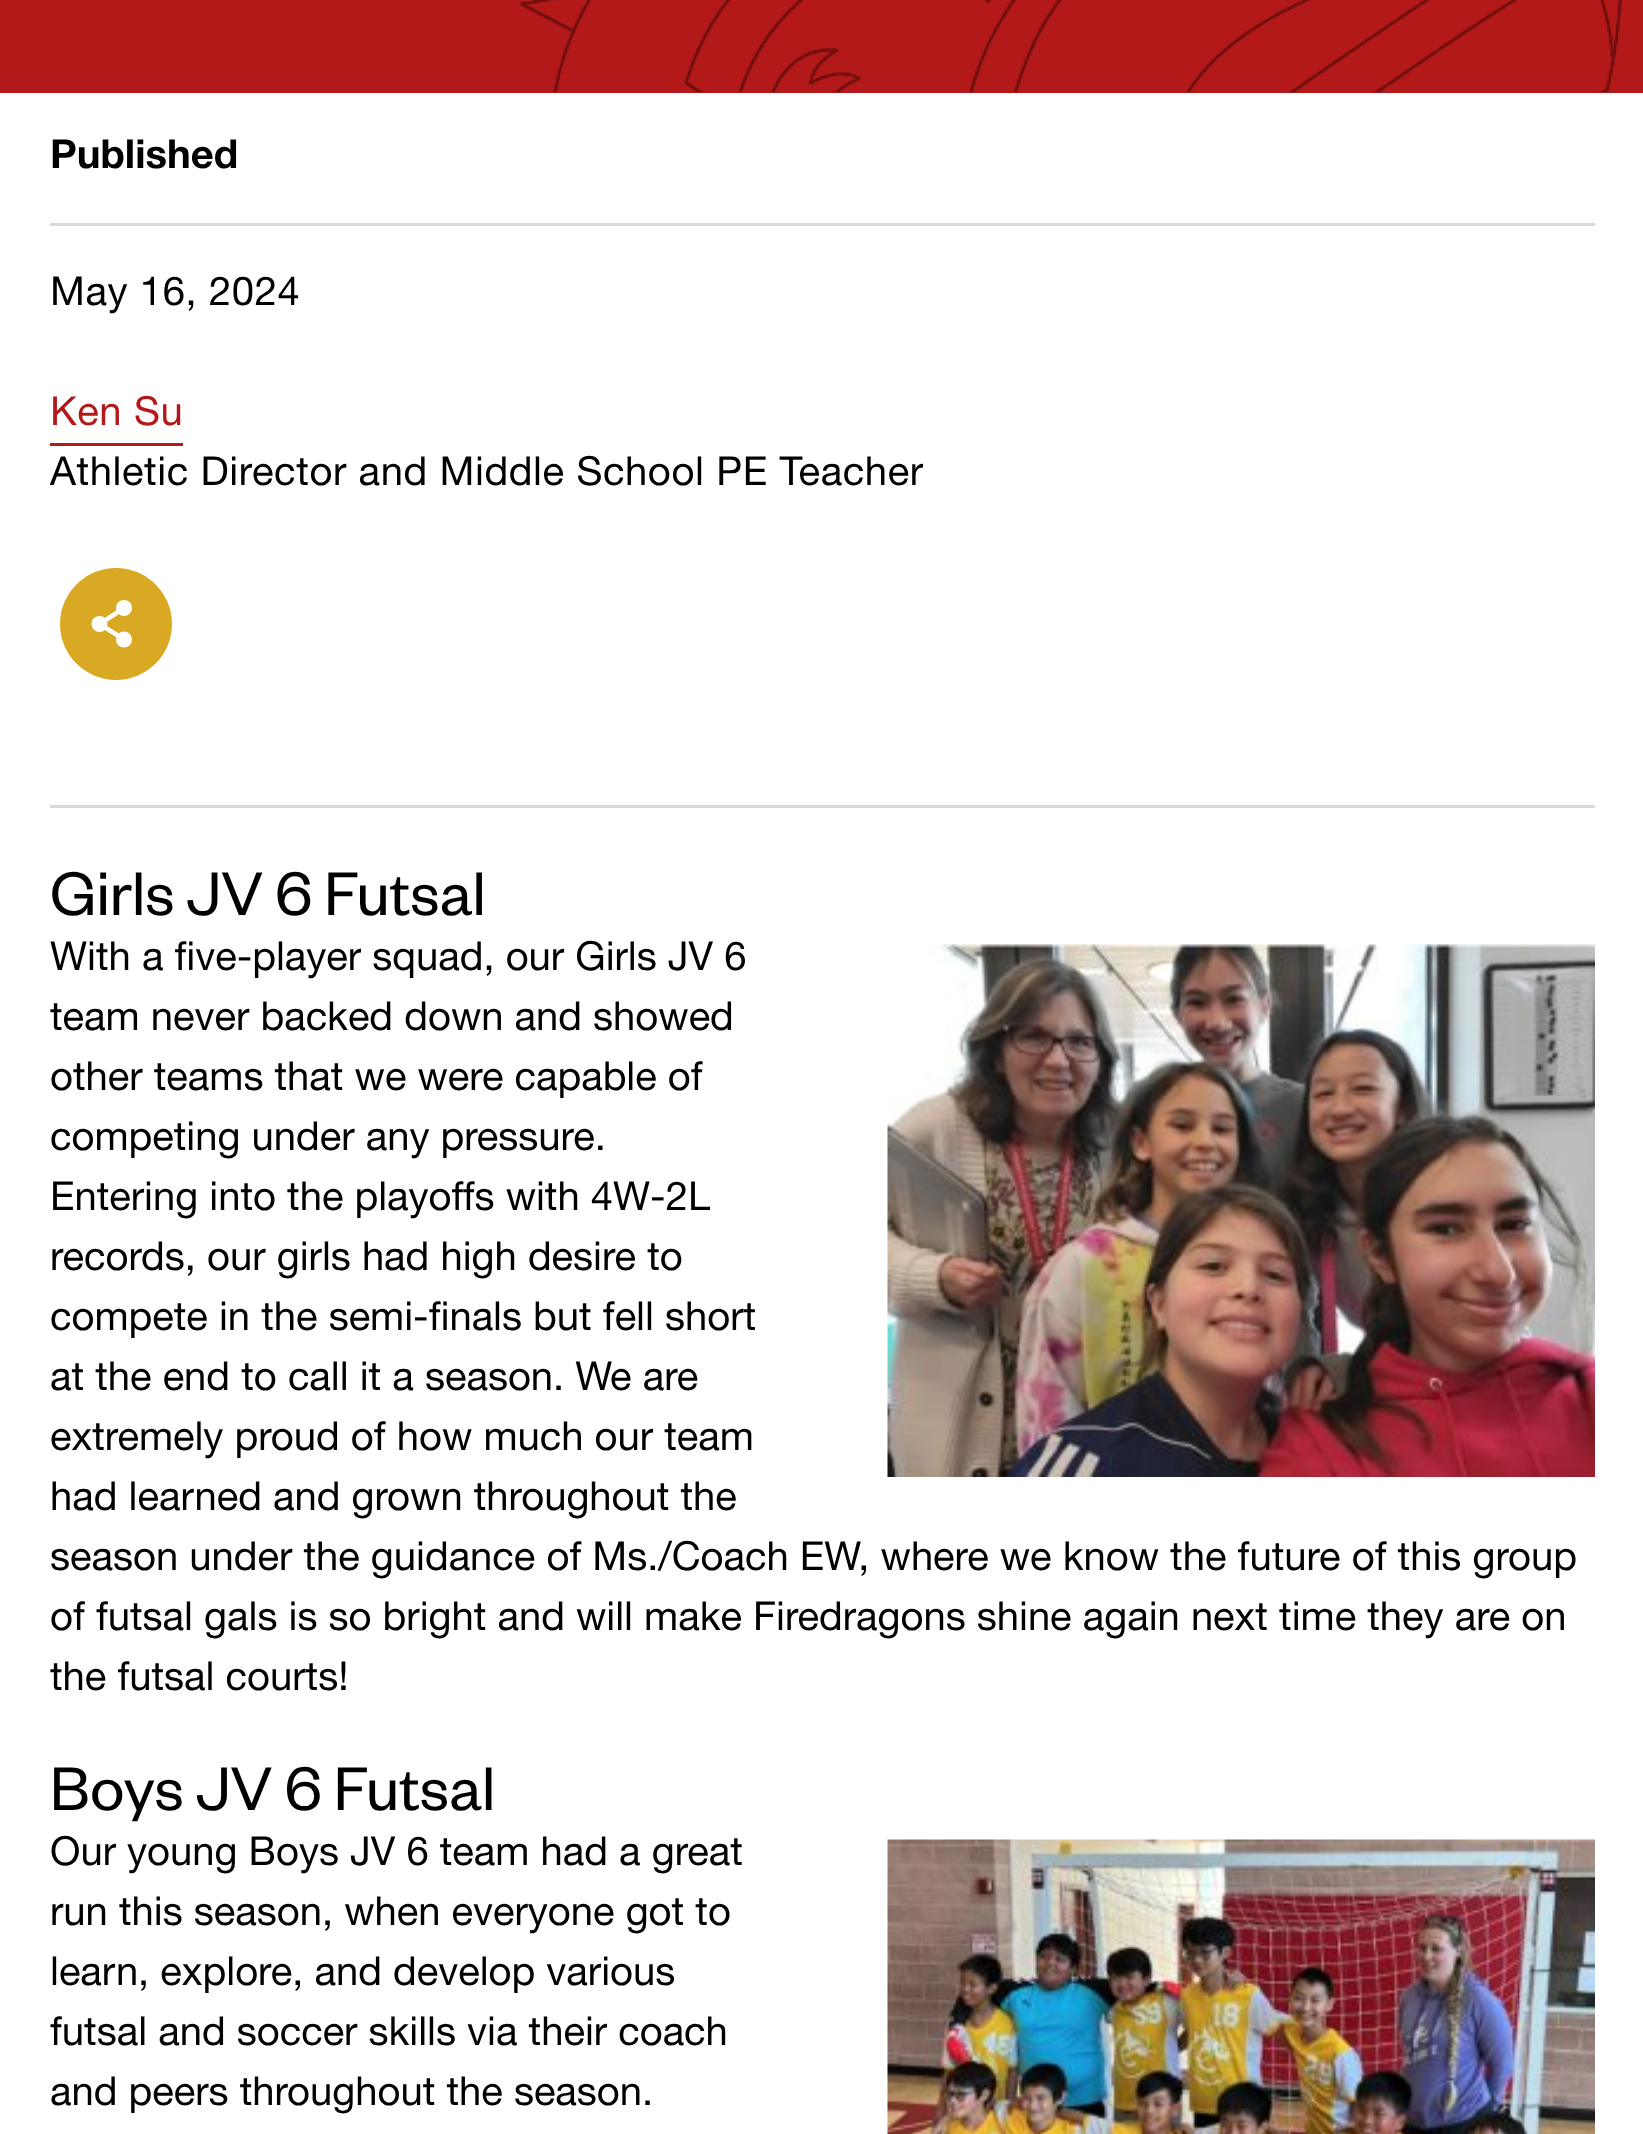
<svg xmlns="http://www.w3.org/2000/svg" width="1643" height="2134">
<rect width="100%" height="100%" fill="#fff"/>
<rect width="1643" height="93" fill="#b31919"/>
<image x="520" y="0" width="1102" height="92" href="media/1.png"/>
<rect x="50" y="223" width="1545" height="3" fill="#d9d9d9"/>
<text x="50" y="168" style="font-family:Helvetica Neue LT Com;font-size:40px;font-weight:bold;fill:#000">Published</text>
<text x="50" y="305" style="font-family:Helvetica Neue LT Com;font-size:40px;letter-spacing:0.6px;fill:#000">May 16, 2024</text>
<text x="50" y="425" style="font-family:Helvetica Neue LT Com;font-size:40px;letter-spacing:0.6px;fill:#b31919">Ken Su</text>
<rect x="50" y="443" width="133" height="3" fill="#b31919"/>
<text x="50" y="485" style="font-family:Helvetica Neue LT Com;font-size:40px;letter-spacing:0.6px;fill:#000">Athletic Director and Middle School PE Teacher</text>
<circle cx="116" cy="624" r="56" fill="#daa923"/>
<circle cx="124" cy="608" r="8" fill="#fff"/>
<circle cx="124" cy="639.5" r="8" fill="#fff"/>
<circle cx="99.5" cy="624" r="8" fill="#fff"/>
<path d="M124 608l-24.5 16m0 0l24.5 15.5" fill="none" stroke="#fff" stroke-width="4.5" stroke-linecap="square"/>
<rect x="50" y="805" width="1545" height="3" fill="#d8d8d8"/>
<text x="50" y="915" style="font-family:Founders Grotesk;font-size:67.5px;fill:#000">Girls JV 6 Futsal</text>
<text x="50" y="970" style="font-family:Helvetica Neue LT Com;font-size:40px;fill:#000">With a five-player squad, our Girls JV 6</text>
<text x="50" y="1030" style="font-family:Helvetica Neue LT Com;font-size:40px;fill:#000">team never backed down and showed</text>
<text x="50" y="1090" style="font-family:Helvetica Neue LT Com;font-size:40px;fill:#000">other teams that we were capable of</text>
<text x="50" y="1150" style="font-family:Helvetica Neue LT Com;font-size:40px;fill:#000">competing under any pressure.</text>
<text x="50" y="1210" style="font-family:Helvetica Neue LT Com;font-size:40px;fill:#000">Entering into the playoffs with 4W-2L</text>
<text x="50" y="1270" style="font-family:Helvetica Neue LT Com;font-size:40px;fill:#000">records, our girls had high desire to</text>
<text x="50" y="1330" style="font-family:Helvetica Neue LT Com;font-size:40px;fill:#000">compete in the semi-finals but fell short</text>
<text x="50" y="1390" style="font-family:Helvetica Neue LT Com;font-size:40px;fill:#000">at the end to call it a season. We are</text>
<text x="50" y="1450" style="font-family:Helvetica Neue LT Com;font-size:40px;fill:#000">extremely proud of how much our team</text>
<text x="50" y="1510" style="font-family:Helvetica Neue LT Com;font-size:40px;fill:#000">had learned and grown throughout the</text>
<text x="50" y="1570" style="font-family:Helvetica Neue LT Com;font-size:40px;fill:#000">season under the guidance of Ms./Coach EW, where we know the future of this group</text>
<text x="50" y="1630" style="font-family:Helvetica Neue LT Com;font-size:40px;fill:#000">of futsal gals is so bright and will make Firedragons shine again next time they are on</text>
<text x="50" y="1690" style="font-family:Helvetica Neue LT Com;font-size:40px;fill:#000">the futsal courts!</text>
<image x="887" y="944" width="708" height="533" href="media/2.png"/>
<text x="50" y="1810" style="font-family:Founders Grotesk;font-size:67.5px;fill:#000">Boys JV 6 Futsal</text>
<text x="50" y="1865" style="font-family:Helvetica Neue LT Com;font-size:40px;fill:#000">Our young Boys JV 6 team had a great</text>
<text x="50" y="1925" style="font-family:Helvetica Neue LT Com;font-size:40px;fill:#000">run this season, when everyone got to</text>
<text x="50" y="1985" style="font-family:Helvetica Neue LT Com;font-size:40px;fill:#000">learn, explore, and develop various</text>
<text x="50" y="2045" style="font-family:Helvetica Neue LT Com;font-size:40px;fill:#000">futsal and soccer skills via their coach</text>
<text x="50" y="2105" style="font-family:Helvetica Neue LT Com;font-size:40px;fill:#000">and peers throughout the season.</text>
<image x="887" y="1839" width="708" height="295" href="media/3.png"/>
</svg>
